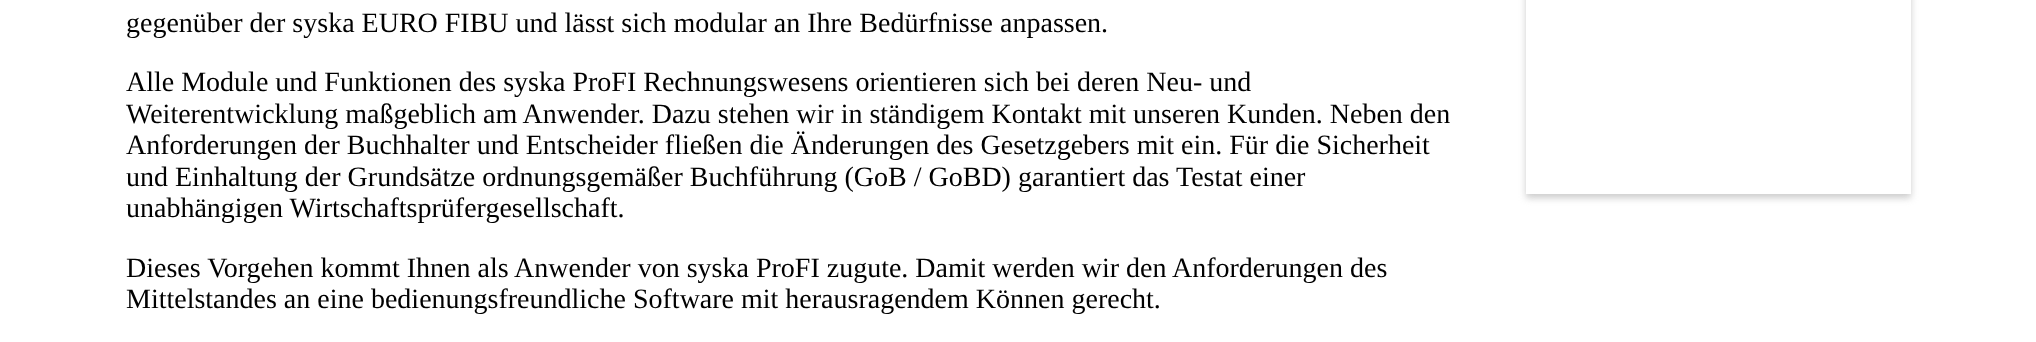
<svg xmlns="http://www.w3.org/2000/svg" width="2036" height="342">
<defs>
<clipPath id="clip1"><path d="M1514 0h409v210h-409zm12-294h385v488h-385z" clip-rule="evenodd"/></clipPath>
</defs>
<rect width="100%" height="100%" fill="#fff"/>
<text x="126" y="32" style="font-family:Liberation Serif;font-size:28px;fill:#000">gegenüber der syska EURO FIBU und lässt sich modular an Ihre Bedürfnisse anpassen.</text>
<text x="126" y="91" style="font-family:Liberation Serif;font-size:28px;fill:#000">Alle Module und Funktionen des syska ProFI Rechnungswesens orientieren sich bei deren Neu- und</text>
<text x="126" y="123" style="font-family:Liberation Serif;font-size:28px;fill:#000">Weiterentwicklung maßgeblich am Anwender. Dazu stehen wir in ständigem Kontakt mit unseren Kunden. Neben den</text>
<text x="126" y="154" style="font-family:Liberation Serif;font-size:28px;fill:#000">Anforderungen der Buchhalter und Entscheider fließen die Änderungen des Gesetzgebers mit ein. Für die Sicherheit</text>
<text x="126" y="186" style="font-family:Liberation Serif;font-size:28px;fill:#000">und Einhaltung der Grundsätze ordnungsgemäßer Buchführung (GoB / GoBD) garantiert das Testat einer</text>
<text x="126" y="217" style="font-family:Liberation Serif;font-size:28px;fill:#000">unabhängigen Wirtschaftsprüfergesellschaft.</text>
<text x="126" y="277" style="font-family:Liberation Serif;font-size:28px;fill:#000">Dieses Vorgehen kommt Ihnen als Anwender von syska ProFI zugute. Damit werden wir den Anforderungen des</text>
<text x="126" y="308" style="font-family:Liberation Serif;font-size:28px;fill:#000">Mittelstandes an eine bedienungsfreundliche Software mit herausragendem Können gerecht.</text>
<g clip-path="url(#clip1)">
<rect x="1526" y="-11" width="385" height="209" fill="#ccc" filter="blur(3.5px)"/>
</g>
</svg>
